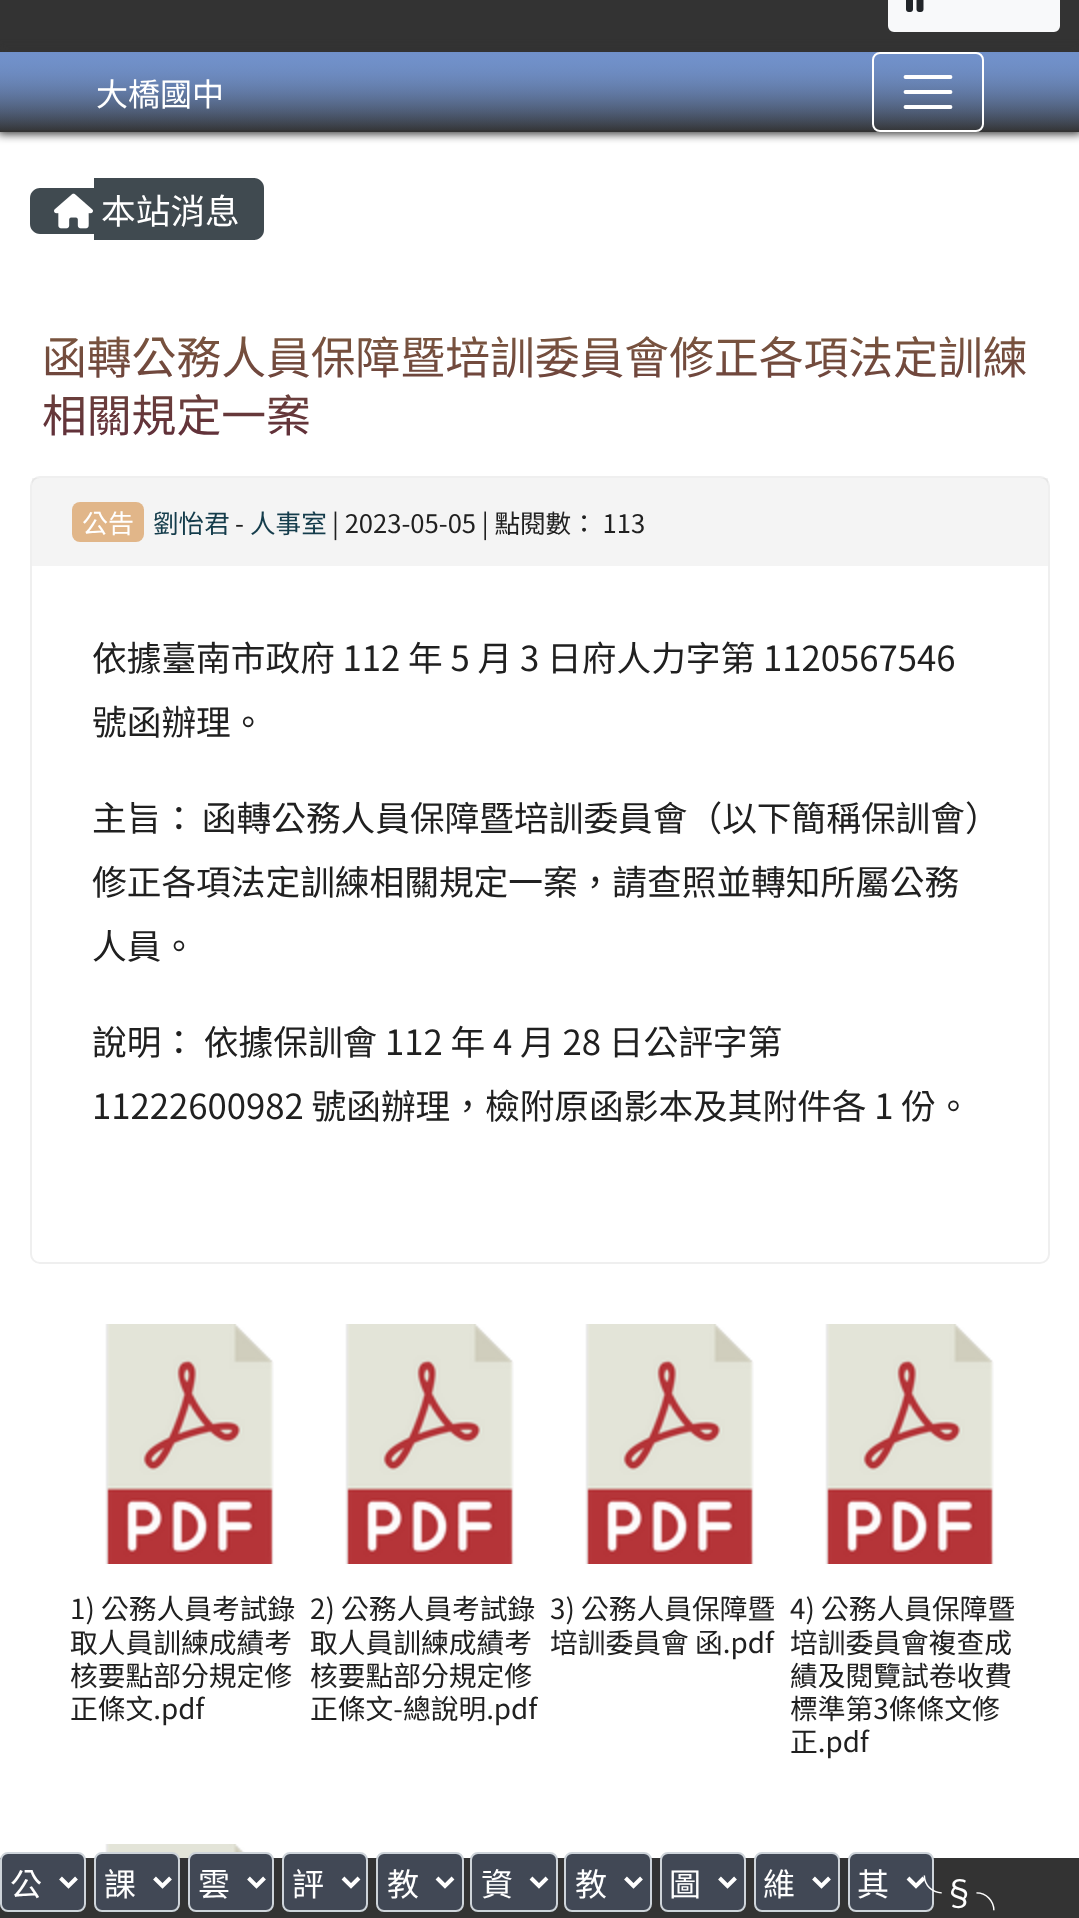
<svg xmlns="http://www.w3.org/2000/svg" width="1079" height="1918">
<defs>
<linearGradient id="g1" gradientUnits="userSpaceOnUse" x1="540" y1="52" x2="540" y2="132"><stop offset="0" stop-color="#7191ca"/><stop offset="1" stop-color="#333"/></linearGradient>
<clipPath id="clip1"><path d="M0 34h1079v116h-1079zm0 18h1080v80h-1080z" clip-rule="evenodd"/></clipPath>
<linearGradient id="g2" gradientUnits="userSpaceOnUse" x1="540" y1="316" x2="540" y2="455"><stop offset="0" stop-color="#7e5c40"/><stop offset="1" stop-color="#5c2938"/></linearGradient>
<linearGradient id="g3" gradientUnits="userSpaceOnUse" x1="540" y1="52" x2="540" y2="132"><stop offset="0" stop-color="#7191ca"/><stop offset="1" stop-color="#7191ca" stop-opacity="0"/></linearGradient>
</defs>
<rect width="100%" height="100%" fill="#333"/>
<rect x="889" y="-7" width="170" height="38" rx="5" fill="#f8f9fa" stroke="#f8f9fa" stroke-width="2"/>
<image x="906" y="0" width="18" height="12" href="media/1.png"/>
<rect y="52" width="1079" height="79" fill="url(#g1)"/>
<rect y="132" width="1079" height="1726" fill="#fff"/>
<g clip-path="url(#clip1)">
<rect x="-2" y="50" width="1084" height="84" fill="#333" filter="blur(5px)"/>
</g>
<rect y="53" width="1079" height="77" fill="url(#g3)"/>
<text x="96" y="106" style="font-family:Noto Sans TC;font-size:32px;fill:#fff">大橋國中</text>
<rect x="873" y="53" width="110" height="78" rx="7" fill="none" stroke="#fff" stroke-width="2"/>
<path d="M905.5 77h45m-45 15h45m-45 15h45" fill="none" stroke="#fff" stroke-width="3.8" stroke-linecap="round"/>
<path d="M40 188h54v46h-54c-5.5 0-10-4.5-10-10v-26c0-5.5 4.5-10 10-10z" fill="#404a50"/>
<path d="M94 178h160c5.5 0 10 4.5 10 10v42c0 5.5-4.5 10-10 10h-160z" fill="#404a50"/>
<image x="54" y="193" width="39" height="36" href="media/2.png"/>
<text x="101" y="224" style="font-family:Noto Sans TC;font-size:34.7px;fill:#fff">本站消息</text>
<text x="42" y="374" style="font-family:Noto Sans TC;font-size:44.8px;fill:url(#g2)">函轉公務人員保障暨培訓委員會修正各項法定訓練</text>
<text x="42" y="432" style="font-family:Noto Sans TC;font-size:44.8px;fill:url(#g2)">相關規定一案</text>
<rect x="31" y="477" width="1018" height="786" rx="9" fill="none" stroke="#efefef" stroke-width="2"/>
<rect x="32" y="478" width="1016" height="88" fill="#c8c8c833"/>
<rect x="72" y="502" width="72" height="40" rx="8" fill="#e1b689"/>
<text x="82" y="533" style="font-family:Noto Sans TC;font-size:26px;fill:#fff">公告</text>
<text x="153" y="533" style="font-family:Noto Sans TC;font-size:25.6px;fill:#143c4b">劉怡君</text>
<text x="235" y="533" style="font-family:Noto Sans TC;font-size:25.6px;fill:#202020">-</text>
<text x="250" y="533" style="font-family:Noto Sans TC;font-size:25.6px;fill:#143c4b">人事室</text>
<text x="332" y="533" style="font-family:Noto Sans TC;font-size:25.6px;fill:#202020">| 2023-05-05 | 點閱數： 113</text>
<text x="92" y="671" style="font-family:Noto Sans TC;font-size:34.7px;fill:#202020">依據臺南市政府 112 年 5 月 3 日府人力字第 1120567546</text>
<text x="92" y="735" style="font-family:Noto Sans TC;font-size:34.7px;fill:#202020">號函辦理。</text>
<text x="92" y="831" word-spacing="-2" style="font-family:Noto Sans TC;font-size:34.7px;fill:#202020">主旨： 函轉公務人員保障暨培訓委員會（以下簡稱保訓會）</text>
<text x="92" y="895" style="font-family:Noto Sans TC;font-size:34.7px;fill:#202020">修正各項法定訓練相關規定一案，請查照並轉知所屬公務</text>
<text x="92" y="959" style="font-family:Noto Sans TC;font-size:34.7px;fill:#202020">人員。</text>
<text x="92" y="1055" style="font-family:Noto Sans TC;font-size:34.7px;fill:#202020">說明： 依據保訓會 112 年 4 月 28 日公評字第</text>
<text x="92" y="1119" style="font-family:Noto Sans TC;font-size:34.7px;fill:#202020">11222600982 號函辦理，檢附原函影本及其附件各 1 份。</text>
<image x="105" y="1324" width="169" height="240" href="media/3.png"/>
<text x="70" y="1619" style="font-family:Noto Sans TC;font-size:27.75px;fill:#202020">1) 公務人員考試錄</text>
<text x="70" y="1653" style="font-family:Noto Sans TC;font-size:27.75px;fill:#202020">取人員訓練成績考</text>
<text x="70" y="1686" style="font-family:Noto Sans TC;font-size:27.75px;fill:#202020">核要點部分規定修</text>
<text x="70" y="1719" style="font-family:Noto Sans TC;font-size:27.75px;fill:#202020">正條文.pdf</text>
<image x="345" y="1324" width="169" height="240" href="media/3.png"/>
<text x="310" y="1619" style="font-family:Noto Sans TC;font-size:27.75px;fill:#202020">2) 公務人員考試錄</text>
<text x="310" y="1653" style="font-family:Noto Sans TC;font-size:27.75px;fill:#202020">取人員訓練成績考</text>
<text x="310" y="1686" style="font-family:Noto Sans TC;font-size:27.75px;fill:#202020">核要點部分規定修</text>
<text x="310" y="1719" style="font-family:Noto Sans TC;font-size:27.75px;fill:#202020">正條文-總說明.pdf</text>
<image x="585" y="1324" width="169" height="240" href="media/3.png"/>
<text x="550" y="1619" style="font-family:Noto Sans TC;font-size:27.75px;fill:#202020">3) 公務人員保障暨</text>
<text x="550" y="1653" style="font-family:Noto Sans TC;font-size:27.75px;fill:#202020">培訓委員會 函.pdf</text>
<image x="825" y="1324" width="169" height="240" href="media/3.png"/>
<text x="790" y="1619" style="font-family:Noto Sans TC;font-size:27.75px;fill:#202020">4) 公務人員保障暨</text>
<text x="790" y="1653" style="font-family:Noto Sans TC;font-size:27.75px;fill:#202020">培訓委員會複查成</text>
<text x="790" y="1686" style="font-family:Noto Sans TC;font-size:27.75px;fill:#202020">績及閱覽試卷收費</text>
<text x="790" y="1719" style="font-family:Noto Sans TC;font-size:27.75px;fill:#202020">標準第3條條文修</text>
<text x="790" y="1752" style="font-family:Noto Sans TC;font-size:27.75px;fill:#202020">正.pdf</text>
<image x="105" y="1844" width="140" height="14" href="media/4.png"/>
<rect x="1" y="1853" width="84" height="58" rx="7" fill="#414855" stroke="#ced4da" stroke-width="2"/>
<path d="M60.5 1878l8 8l8-8" fill="none" stroke="#fff" stroke-width="4"/>
<text x="10" y="1896" style="font-family:Noto Sans TC;font-size:32px;fill:#fff">公</text>
<rect x="95" y="1853" width="84" height="58" rx="7" fill="#414855" stroke="#ced4da" stroke-width="2"/>
<path d="M154.5 1878l8 8l8-8" fill="none" stroke="#fff" stroke-width="4"/>
<text x="104" y="1896" style="font-family:Noto Sans TC;font-size:32px;fill:#fff">課</text>
<rect x="189" y="1853" width="84" height="58" rx="7" fill="#414855" stroke="#ced4da" stroke-width="2"/>
<path d="M248.5 1878l8 8l8-8" fill="none" stroke="#fff" stroke-width="4"/>
<text x="198" y="1896" style="font-family:Noto Sans TC;font-size:32px;fill:#fff">雲</text>
<rect x="283" y="1853" width="84" height="58" rx="7" fill="#414855" stroke="#ced4da" stroke-width="2"/>
<path d="M343 1878l8 8l8-8" fill="none" stroke="#fff" stroke-width="4"/>
<text x="292" y="1896" style="font-family:Noto Sans TC;font-size:32px;fill:#fff">評</text>
<rect x="377" y="1853" width="86" height="58" rx="7" fill="#414855" stroke="#ced4da" stroke-width="2"/>
<path d="M437 1878l8 8l8-8" fill="none" stroke="#fff" stroke-width="4"/>
<text x="387" y="1896" style="font-family:Noto Sans TC;font-size:32px;fill:#fff">教</text>
<rect x="471" y="1853" width="86" height="58" rx="7" fill="#414855" stroke="#ced4da" stroke-width="2"/>
<path d="M531 1878l8 8l8-8" fill="none" stroke="#fff" stroke-width="4"/>
<text x="481" y="1896" style="font-family:Noto Sans TC;font-size:32px;fill:#fff">資</text>
<rect x="565" y="1853" width="86" height="58" rx="7" fill="#414855" stroke="#ced4da" stroke-width="2"/>
<path d="M625.5 1878l8 8l8-8" fill="none" stroke="#fff" stroke-width="4"/>
<text x="575" y="1896" style="font-family:Noto Sans TC;font-size:32px;fill:#fff">教</text>
<rect x="661" y="1853" width="84" height="58" rx="7" fill="#414855" stroke="#ced4da" stroke-width="2"/>
<path d="M719.5 1878l8 8l8-8" fill="none" stroke="#fff" stroke-width="4"/>
<text x="669" y="1896" style="font-family:Noto Sans TC;font-size:32px;fill:#fff">圖</text>
<rect x="755" y="1853" width="84" height="58" rx="7" fill="#414855" stroke="#ced4da" stroke-width="2"/>
<path d="M813.5 1878l8 8l8-8" fill="none" stroke="#fff" stroke-width="4"/>
<text x="763" y="1896" style="font-family:Noto Sans TC;font-size:32px;fill:#fff">維</text>
<rect x="849" y="1853" width="84" height="58" rx="7" fill="#414855" stroke="#ced4da" stroke-width="2"/>
<path d="M908 1878l8 8l8-8" fill="none" stroke="#fff" stroke-width="4"/>
<text x="857" y="1896" style="font-family:Noto Sans TC;font-size:32px;fill:#fff">其</text>
<text x="907" y="1906" style="font-family:Noto Sans TC;font-size:34.7px;fill:#fff">╰§╮</text>
</svg>
